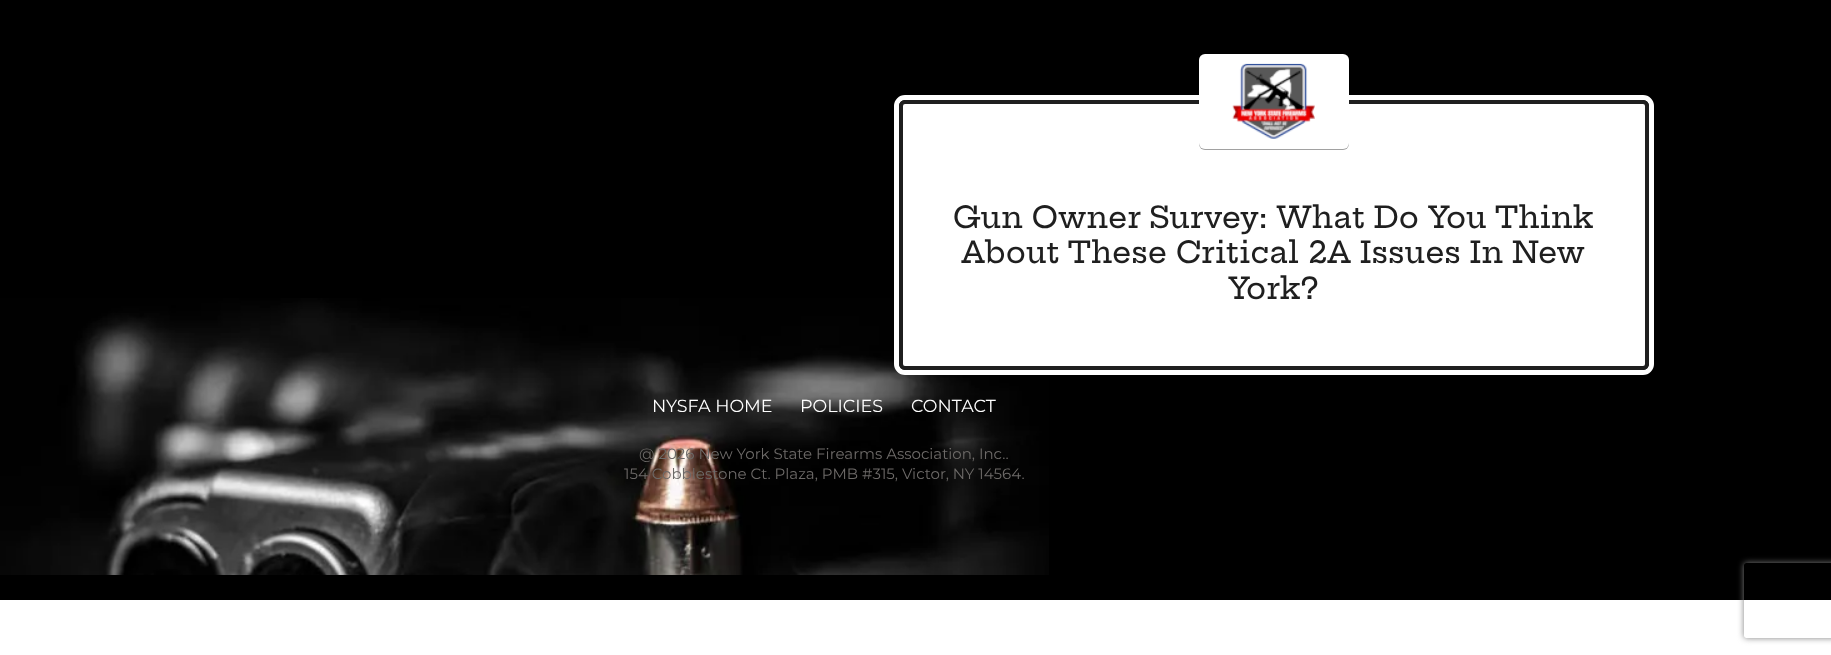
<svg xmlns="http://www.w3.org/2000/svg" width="1831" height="655">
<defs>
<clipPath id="clip1"><path d="M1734 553h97v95h-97zm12.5 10h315c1.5 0 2.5 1 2.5 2.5v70c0 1.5-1 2.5-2.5 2.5h-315c-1.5 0-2.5-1-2.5-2.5v-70c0-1.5 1-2.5 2.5-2.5z" clip-rule="evenodd"/></clipPath>
</defs>
<rect width="100%" height="100%" fill="#fff"/>
<rect width="1831" height="600" fill="#000"/>
<image x="0" y="298" width="1049" height="277" href="media/1.png"/>
<rect x="896.5" y="97.5" width="755" height="275" rx="8.5" fill="none" stroke="#fff" stroke-width="5"/>
<rect x="901" y="102" width="746" height="266" rx="4" fill="#fff" stroke="#1f1f1f" stroke-width="4"/>
<rect x="1199" y="55" width="150" height="95" rx="6" fill="#0000005e" filter="blur(0.5px)"/>
<rect x="1199" y="54" width="150" height="95" rx="6" fill="#fff"/>
<image x="1232" y="63" width="83" height="76" href="media/2.png"/>
<text x="953" y="228" style="font-family:Hepta Slab;font-size:30px;font-weight:500;fill:#1f1f1f">Gun Owner Survey: What Do You Think</text>
<text x="961" y="263" style="font-family:Hepta Slab;font-size:30px;font-weight:500;fill:#1f1f1f">About These Critical 2A Issues In New</text>
<text x="1228" y="299" style="font-family:Hepta Slab;font-size:30px;font-weight:500;fill:#1f1f1f">York?</text>
<text x="652" y="412" style="font-family:Montserrat;font-size:17.5px;fill:#fff">NYSFA HOME</text>
<text x="800" y="412" style="font-family:Montserrat;font-size:17.5px;fill:#fff">POLICIES</text>
<text x="911" y="412" style="font-family:Montserrat;font-size:17.5px;fill:#fff">CONTACT</text>
<text x="639" y="459" style="font-family:Montserrat;font-size:15px;fill:#6d6a68">@ 2026 New York State Firearms Association, Inc..</text>
<text x="624" y="479" style="font-family:Montserrat;font-size:15px;fill:#6d6a68">154 Cobblestone Ct. Plaza, PMB #315, Victor, NY 14564.</text>
<g clip-path="url(#clip1)">
<rect x="1744" y="563" width="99" height="75" rx="2.5" fill="#808080" filter="blur(3px)"/>
</g>
</svg>
